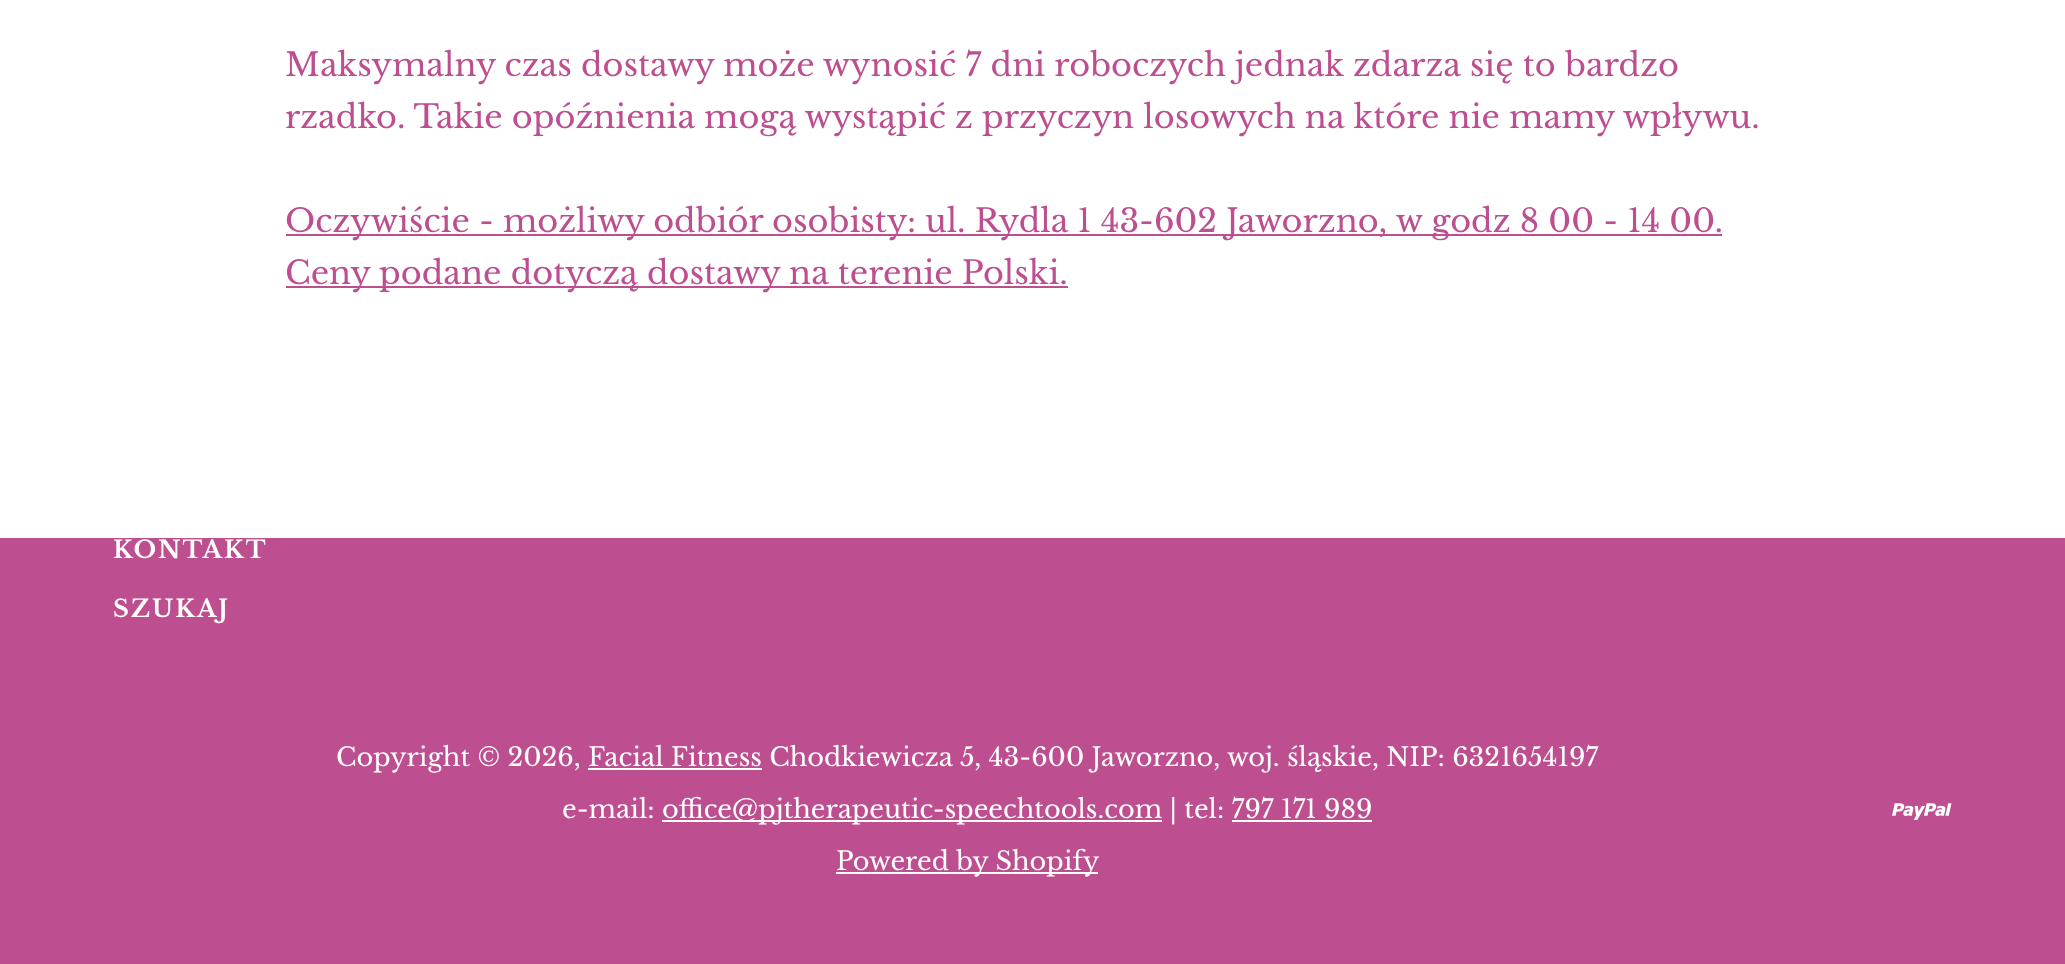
<svg xmlns="http://www.w3.org/2000/svg" width="2065" height="964">
<rect width="100%" height="100%" fill="#bd4e8f"/>
<rect width="2065" height="538" fill="#fff"/>
<text x="285" y="76" style="font-family:Libre Baskerville;font-size:32px;fill:#bd4e8f">Maksymalny czas dostawy może wynosić 7 dni roboczych jednak zdarza się to bardzo</text>
<text x="285" y="128" style="font-family:Libre Baskerville;font-size:32px;fill:#bd4e8f">rzadko. Takie opóźnienia mogą wystąpić z przyczyn losowych na które nie mamy wpływu.</text>
<rect x="286" y="234" width="1436" height="2" fill="#bd4e8f"/>
<text x="285" y="232" style="font-family:Libre Baskerville;font-size:32px;fill:#bd4e8f">Oczywiście - możliwy odbiór osobisty: ul. Rydla 1 43-602 Jaworzno, w godz 8 00 - 14 00.</text>
<rect x="286" y="286" width="782" height="2" fill="#bd4e8f"/>
<text x="285" y="284" style="font-family:Libre Baskerville;font-size:32px;fill:#bd4e8f">Ceny podane dotyczą dostawy na terenie Polski.</text>
<text x="113" y="558" style="font-family:Libre Baskerville;font-size:24px;font-weight:bold;letter-spacing:2px;fill:#fff">KONTAKT</text>
<text x="113" y="617" style="font-family:Libre Baskerville;font-size:24px;font-weight:bold;letter-spacing:2px;fill:#fff">SZUKAJ</text>
<text x="336" y="766" style="font-family:Libre Baskerville;font-size:25.6px;fill:#fff">Copyright © 2026, Facial Fitness Chodkiewicza 5, 43-600 Jaworzno, woj. śląskie, NIP: 6321654197</text>
<rect x="588" y="768" width="174" height="2" fill="#fff"/>
<text x="562" y="818" style="font-family:Libre Baskerville;font-size:25.6px;fill:#fff">e-mail:</text>
<rect x="662" y="820" width="500" height="2" fill="#fff"/>
<text x="662" y="818" style="font-family:Libre Baskerville;font-size:25.6px;fill:#fff">office@pjtherapeutic-speechtools.com | tel: 797 171 989</text>
<rect x="1232" y="820" width="140" height="2" fill="#fff"/>
<rect x="836" y="872" width="262" height="2" fill="#fff"/>
<text x="836" y="870" style="font-family:Libre Baskerville;font-size:25.6px;fill:#fff">Powered by Shopify</text>
<image x="1892" y="803" width="60" height="17" href="media/1.png"/>
</svg>
